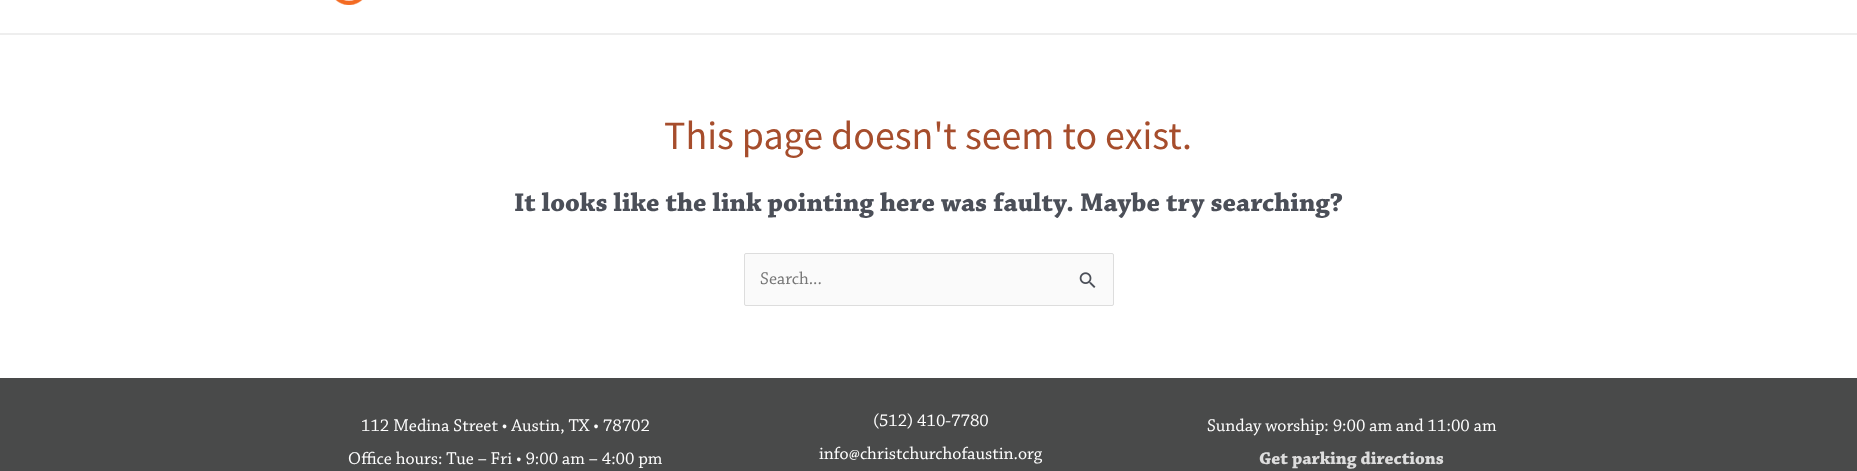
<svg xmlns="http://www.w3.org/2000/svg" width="1857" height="471">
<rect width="100%" height="100%" fill="#fff"/>
<rect y="33" width="1857" height="2" fill="#eee"/>
<image x="335" y="0" width="28" height="5" href="media/1.png"/>
<text x="664" y="149" style="font-family:Source Sans Pro;font-size:40px;fill:#a64d2c">This page doesn't seem to exist.</text>
<text x="514" y="211" style="font-family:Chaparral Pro;font-size:27px;font-weight:bold;fill:#4b4f58">It looks like the link pointing here was faulty. Maybe try searching?</text>
<rect x="744.5" y="253.5" width="369" height="52" rx="1.5" fill="#fafafa" stroke="#ddd"/>
<text x="760" y="284" style="font-family:Chaparral Pro;font-size:18px;fill:#757575">Search...</text>
<image x="1079" y="272" width="17" height="16" href="media/2.png"/>
<rect y="378" width="1857" height="93" fill="#494a4a"/>
<text x="361" y="431" style="font-family:Chaparral Pro;font-size:18px;fill:#fff">112 Medina Street • Austin, TX • 78702</text>
<text x="348" y="464" style="font-family:Chaparral Pro;font-size:18px;fill:#fff">Office hours: Tue – Fri • 9:00 am – 4:00 pm</text>
<text x="873" y="426" style="font-family:Chaparral Pro;font-size:18px;fill:#fff">(512) 410-7780</text>
<text x="819" y="459" style="font-family:Chaparral Pro;font-size:18px;fill:#fff">info@christchurchofaustin.org</text>
<text x="1207" y="431" style="font-family:Chaparral Pro;font-size:18px;fill:#fff">Sunday worship: 9:00 am and 11:00 am</text>
<text x="1259" y="464" style="font-family:Chaparral Pro;font-size:18px;font-weight:bold;fill:#ddd">Get parking directions</text>
</svg>
